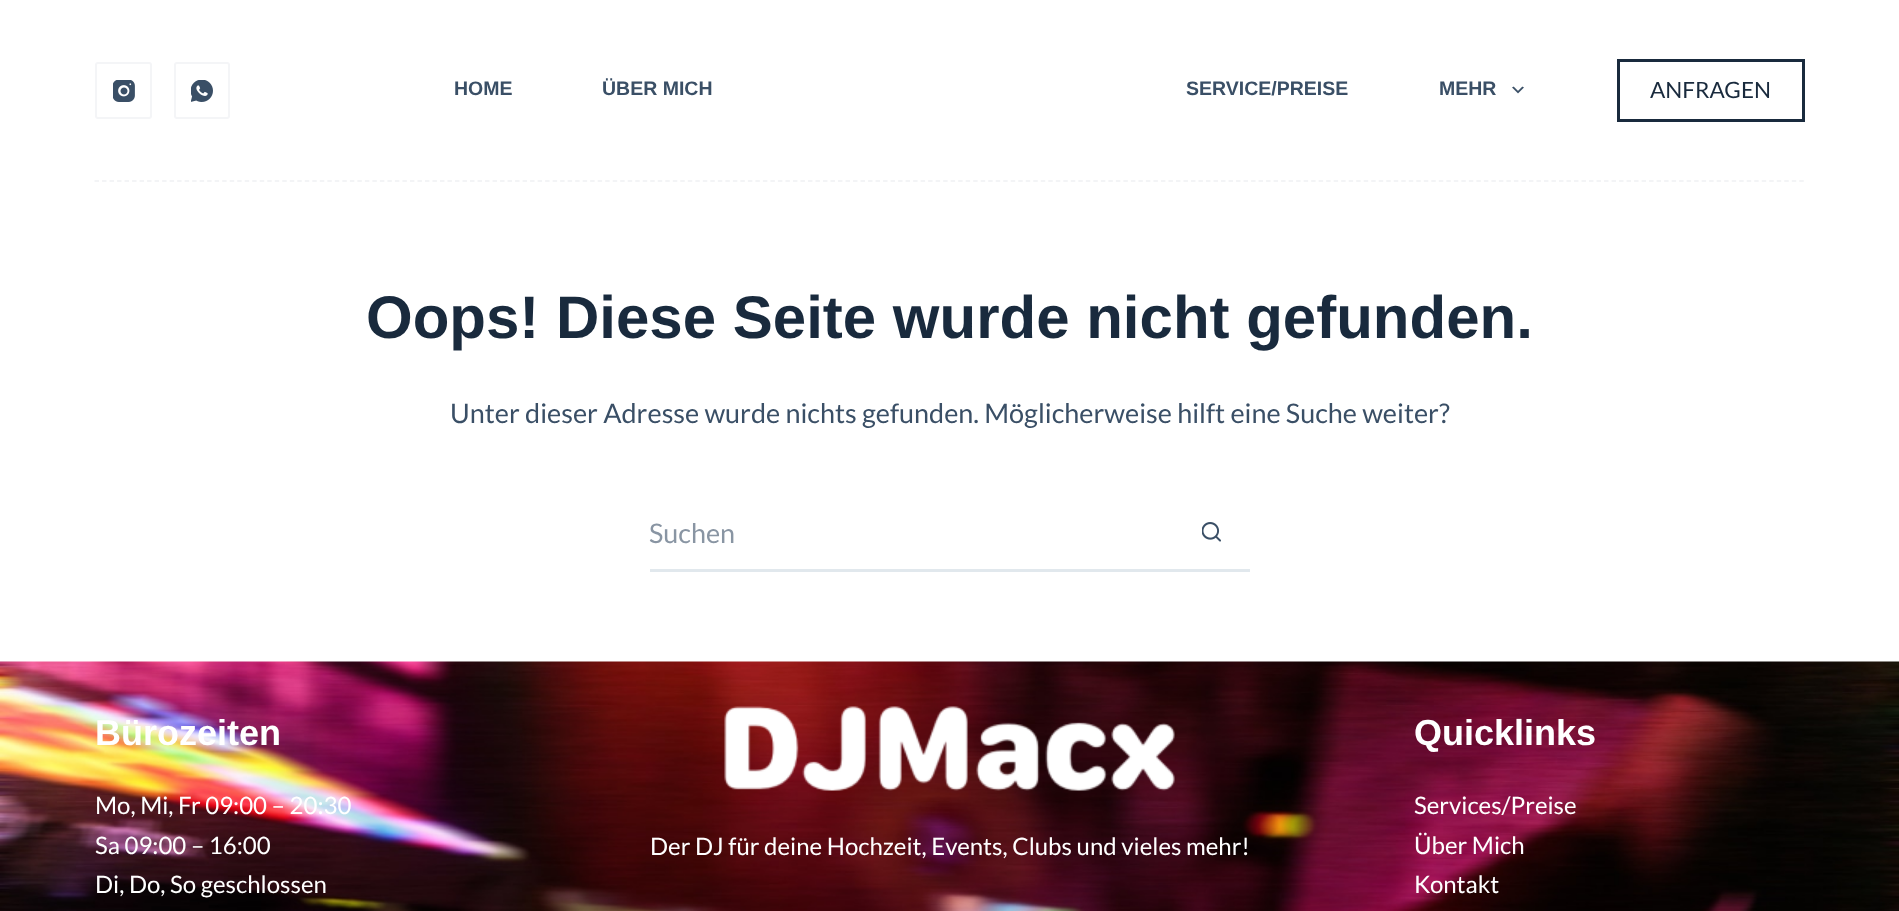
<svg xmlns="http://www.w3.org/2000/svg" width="1899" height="911">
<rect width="100%" height="100%" fill="#fff"/>
<path d="M94.5 181h1710" fill="none" stroke="#f0f1f3" stroke-width="1.5" stroke-dasharray="4.5 3.01"/>
<rect x="96" y="63" width="55" height="55" rx="2" fill="none" stroke="#f4f5f7" stroke-width="2"/>
<image x="113" y="80" width="22" height="22" href="media/1.png"/>
<rect x="175" y="63" width="54" height="55" rx="2" fill="none" stroke="#f4f5f7" stroke-width="2"/>
<image x="191" y="80" width="22" height="22" href="media/2.png"/>
<text x="454" y="95" style="font-family:Liberation Sans;font-size:19.5px;font-weight:bold;fill:#3a4f66">HOME</text>
<text x="602" y="95" style="font-family:Liberation Sans;font-size:19.5px;font-weight:bold;fill:#3a4f66">ÜBER MICH</text>
<text x="1186" y="95" style="font-family:Liberation Sans;font-size:19.5px;font-weight:bold;fill:#3a4f66">SERVICE/PREISE</text>
<text x="1439" y="95" style="font-family:Liberation Sans;font-size:19.5px;font-weight:bold;fill:#3a4f66">MEHR</text>
<image x="1512" y="86" width="12" height="8" href="media/3.png"/>
<rect x="1618.5" y="60.5" width="185" height="60" fill="none" stroke="#192a3d" stroke-width="3"/>
<text x="1650" y="98" style="font-family:Lato;font-size:22.5px;fill:#192a3d">ANFRAGEN</text>
<text x="366" y="338" style="font-family:Liberation Sans;font-size:60px;font-weight:bold;fill:#192a3d">Oops! Diese Seite wurde nicht gefunden.</text>
<text x="450" y="423" style="font-family:Lato;font-size:27px;fill:#3a4f66">Unter dieser Adresse wurde nichts gefunden. Möglicherweise hilft eine Suche weiter?</text>
<rect x="650" y="569" width="600" height="3" fill="#e1e8ed"/>
<text x="649" y="543" style="font-family:Lato;font-size:27px;fill:#8995a3">Suchen</text>
<image x="1202" y="522" width="19" height="20" href="media/4.png"/>
<image x="0" y="661" width="1899" height="250" href="media/5.png"/>
<text x="95" y="745" style="font-family:Liberation Sans;font-size:36px;font-weight:bold;fill:#fff">Bürozeiten</text>
<text x="95" y="814" style="font-family:Lato;font-size:24px;fill:#fff">Mo, Mi, Fr 09:00 – 20:30</text>
<text x="95" y="854" style="font-family:Lato;font-size:24px;fill:#fff">Sa 09:00 – 16:00</text>
<text x="95" y="893" style="font-family:Lato;font-size:24px;fill:#fff">Di, Do, So geschlossen</text>
<image x="724" y="706" width="451" height="85" href="media/6.png"/>
<text x="650" y="855" style="font-family:Lato;font-size:24px;fill:#fff">Der DJ für deine Hochzeit, Events, Clubs und vieles mehr!</text>
<text x="1414" y="745" style="font-family:Liberation Sans;font-size:36px;font-weight:bold;fill:#fff">Quicklinks</text>
<text x="1414" y="814" style="font-family:Lato;font-size:24px;fill:#fff">Services/Preise</text>
<text x="1414" y="854" style="font-family:Lato;font-size:24px;fill:#fff">Über Mich</text>
<text x="1414" y="893" style="font-family:Lato;font-size:24px;fill:#fff">Kontakt</text>
</svg>
